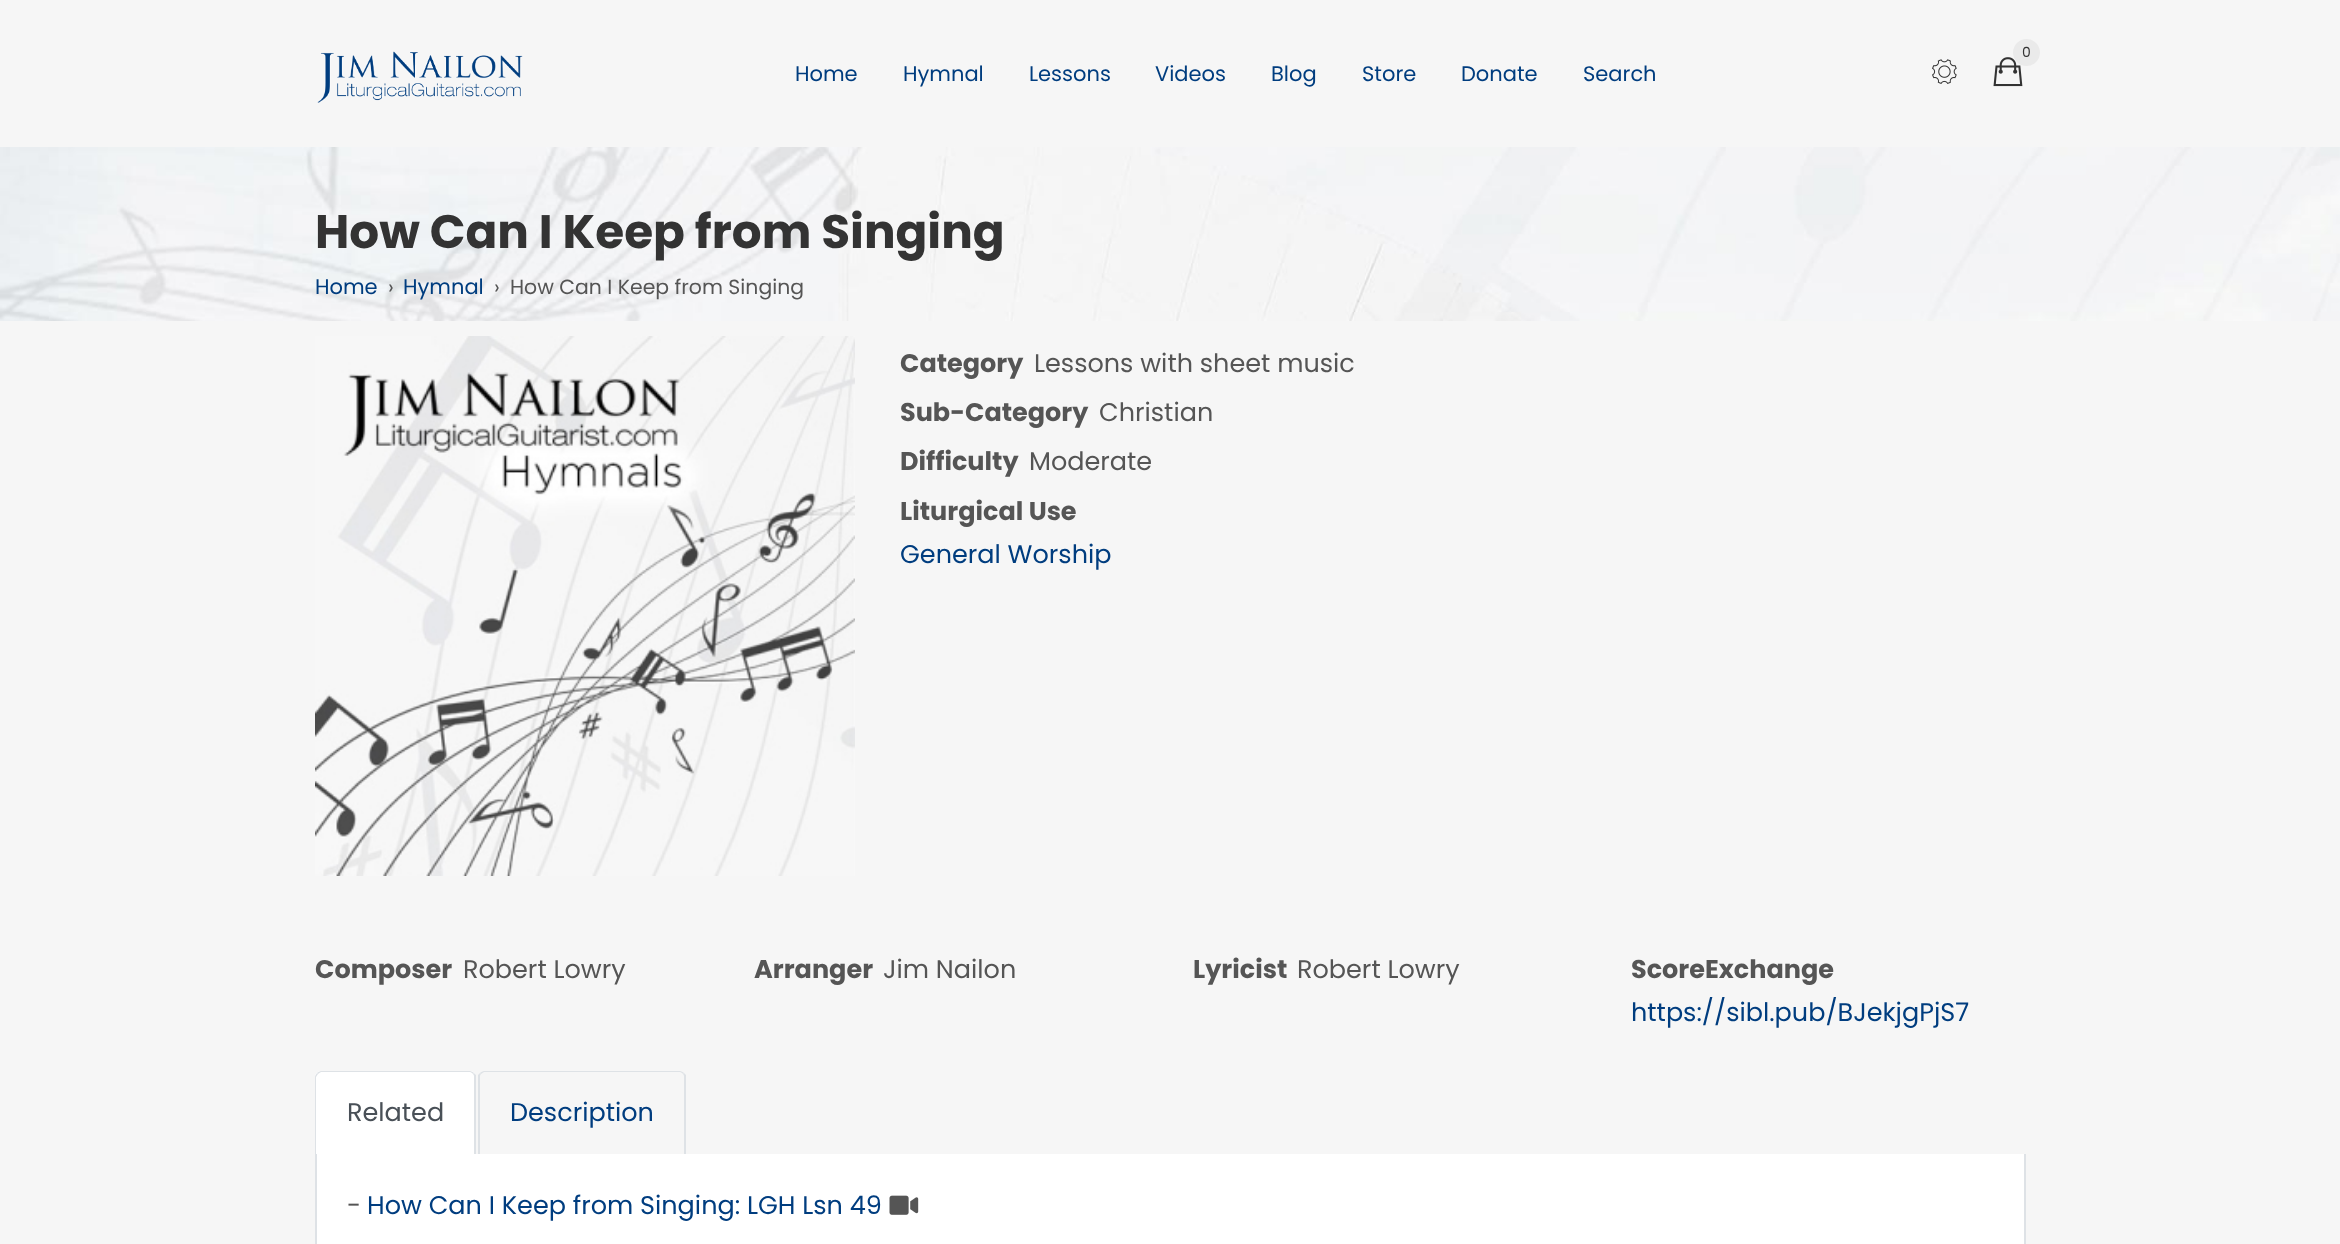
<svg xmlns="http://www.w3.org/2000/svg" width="2340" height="1244">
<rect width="100%" height="100%" fill="#f6f6f6"/>
<image x="317" y="51" width="206" height="52" href="media/1.png"/>
<text x="795" y="81" style="font-family:Poppins;font-size:21px;fill:#003d7f">Home</text>
<text x="903" y="81" style="font-family:Poppins;font-size:21px;fill:#003d7f">Hymnal</text>
<text x="1029" y="81" style="font-family:Poppins;font-size:21px;fill:#003d7f">Lessons</text>
<text x="1155" y="81" style="font-family:Poppins;font-size:21px;fill:#003d7f">Videos</text>
<text x="1271" y="81" style="font-family:Poppins;font-size:21px;fill:#003d7f">Blog</text>
<text x="1362" y="81" style="font-family:Poppins;font-size:21px;fill:#003d7f">Store</text>
<text x="1461" y="81" style="font-family:Poppins;font-size:21px;fill:#003d7f">Donate</text>
<text x="1583" y="81" style="font-family:Poppins;font-size:21px;fill:#003d7f">Search</text>
<image x="1993" y="57" width="30" height="30" href="media/2.png"/>
<circle cx="2026.5" cy="52.5" r="13.5" fill="#eaeaea"/>
<text x="2022" y="57" style="font-family:Poppins;font-size:14px;fill:#333">0</text>
<image x="1932" y="59" width="25" height="25" href="media/3.png"/>
<image x="0" y="147" width="2340" height="174" href="media/4.png"/>
<text x="315" y="248" style="font-family:Poppins;font-size:46.9px;font-weight:bold;fill:#333">How Can I Keep from Singing</text>
<text x="315" y="294" style="font-family:Poppins;font-size:21px;fill:#003d7f">Home</text>
<text x="388" y="294" style="font-family:Poppins;font-size:20.4px;fill:#555">›</text>
<text x="403" y="294" style="font-family:Poppins;font-size:21px;fill:#003d7f">Hymnal</text>
<text x="494" y="294" style="font-family:Poppins;font-size:20.4px;fill:#555">›</text>
<text x="510" y="294" style="font-family:Poppins;font-size:20.4px;fill:#555">How Can I Keep from Singing</text>
<image x="315" y="336" width="540" height="540" href="media/5.png"/>
<text x="900" y="372" style="font-family:Poppins;font-size:25.5px;font-weight:bold;fill:#555">Category</text>
<text x="1034" y="372" style="font-family:Poppins;font-size:25.5px;fill:#555">Lessons with sheet music</text>
<text x="900" y="421" style="font-family:Poppins;font-size:25.5px;font-weight:bold;fill:#555">Sub-Category</text>
<text x="1099" y="421" style="font-family:Poppins;font-size:25.5px;fill:#555">Christian</text>
<text x="900" y="470" style="font-family:Poppins;font-size:25.5px;font-weight:bold;fill:#555">Difficulty</text>
<text x="1029" y="470" style="font-family:Poppins;font-size:25.5px;fill:#555">Moderate</text>
<text x="900" y="520" style="font-family:Poppins;font-size:25.5px;font-weight:bold;fill:#555">Liturgical Use</text>
<text x="900" y="563" style="font-family:Poppins;font-size:25.5px;fill:#003d7f">General Worship</text>
<text x="315" y="978" style="font-family:Poppins;font-size:25.5px;font-weight:bold;fill:#555">Composer</text>
<text x="463" y="978" style="font-family:Poppins;font-size:25.5px;fill:#555">Robert Lowry</text>
<text x="754" y="978" style="font-family:Poppins;font-size:25.5px;font-weight:bold;fill:#555">Arranger</text>
<text x="883" y="978" style="font-family:Poppins;font-size:25.5px;fill:#555">Jim Nailon</text>
<text x="1193" y="978" style="font-family:Poppins;font-size:25.5px;font-weight:bold;fill:#555">Lyricist</text>
<text x="1297" y="978" style="font-family:Poppins;font-size:25.5px;fill:#555">Robert Lowry</text>
<text x="1631" y="978" style="font-family:Poppins;font-size:25.5px;font-weight:bold;fill:#555">ScoreExchange</text>
<text x="1631" y="1021" style="font-family:Poppins;font-size:25.5px;fill:#003d7f">https://sibl.pub/BJekjgPjS7</text>
<path d="M321 1071h149c3.5 0 6 2.5 6 6v77h-161v-77c0-3.5 2.5-6 6-6z" fill="#fff"/>
<path d="M321 1071c-1 0-3 1-4 2l1 1l3-2h149c1 0 2 1 3 2l1-1c-1-1-3-2-4-2z" fill="#dee2e6"/>
<path d="M476 1075v80l-2-1v-77c0-1 0-2-1-3l1-1z" fill="#dee2e6"/>
<path d="M315 1155l1-1v-77l2-3l-1-1c-1 1-2 3-2 4z" fill="#dee2e6"/>
<text x="347" y="1121" style="font-family:Poppins;font-size:25.5px;fill:#495057">Related</text>
<path d="M484 1071c-1 0-3 1-4 2l1 1l3-2h196c1 0 2 1 3 2l1-1c-1-1-3-2-4-2z" fill="#dee2e6"/>
<path d="M686 1075v80l-2-1v-77c0-1 0-2-1-3l1-1z" fill="#dee2e6"/>
<path d="M478 1155v-80l2-2l1 1c-1 1-1 2-1 3v77z" fill="#dee2e6"/>
<text x="510" y="1121" style="font-family:Poppins;font-size:25.5px;fill:#003d7f">Description</text>
<rect x="317" y="1154" width="1707" height="90" fill="#fff"/>
<rect x="2024" y="1154" width="2" height="90" fill="#dee2e6"/>
<rect x="315" y="1154" width="2" height="90" fill="#dee2e6"/>
<text x="347" y="1214" style="font-family:Poppins;font-size:25.5px;fill:#555">-</text>
<text x="367" y="1214" style="font-family:Poppins;font-size:25.5px;fill:#003d7f">How Can I Keep from Singing: LGH Lsn 49</text>
<image x="889" y="1195" width="30" height="20" href="media/6.png"/>
</svg>
